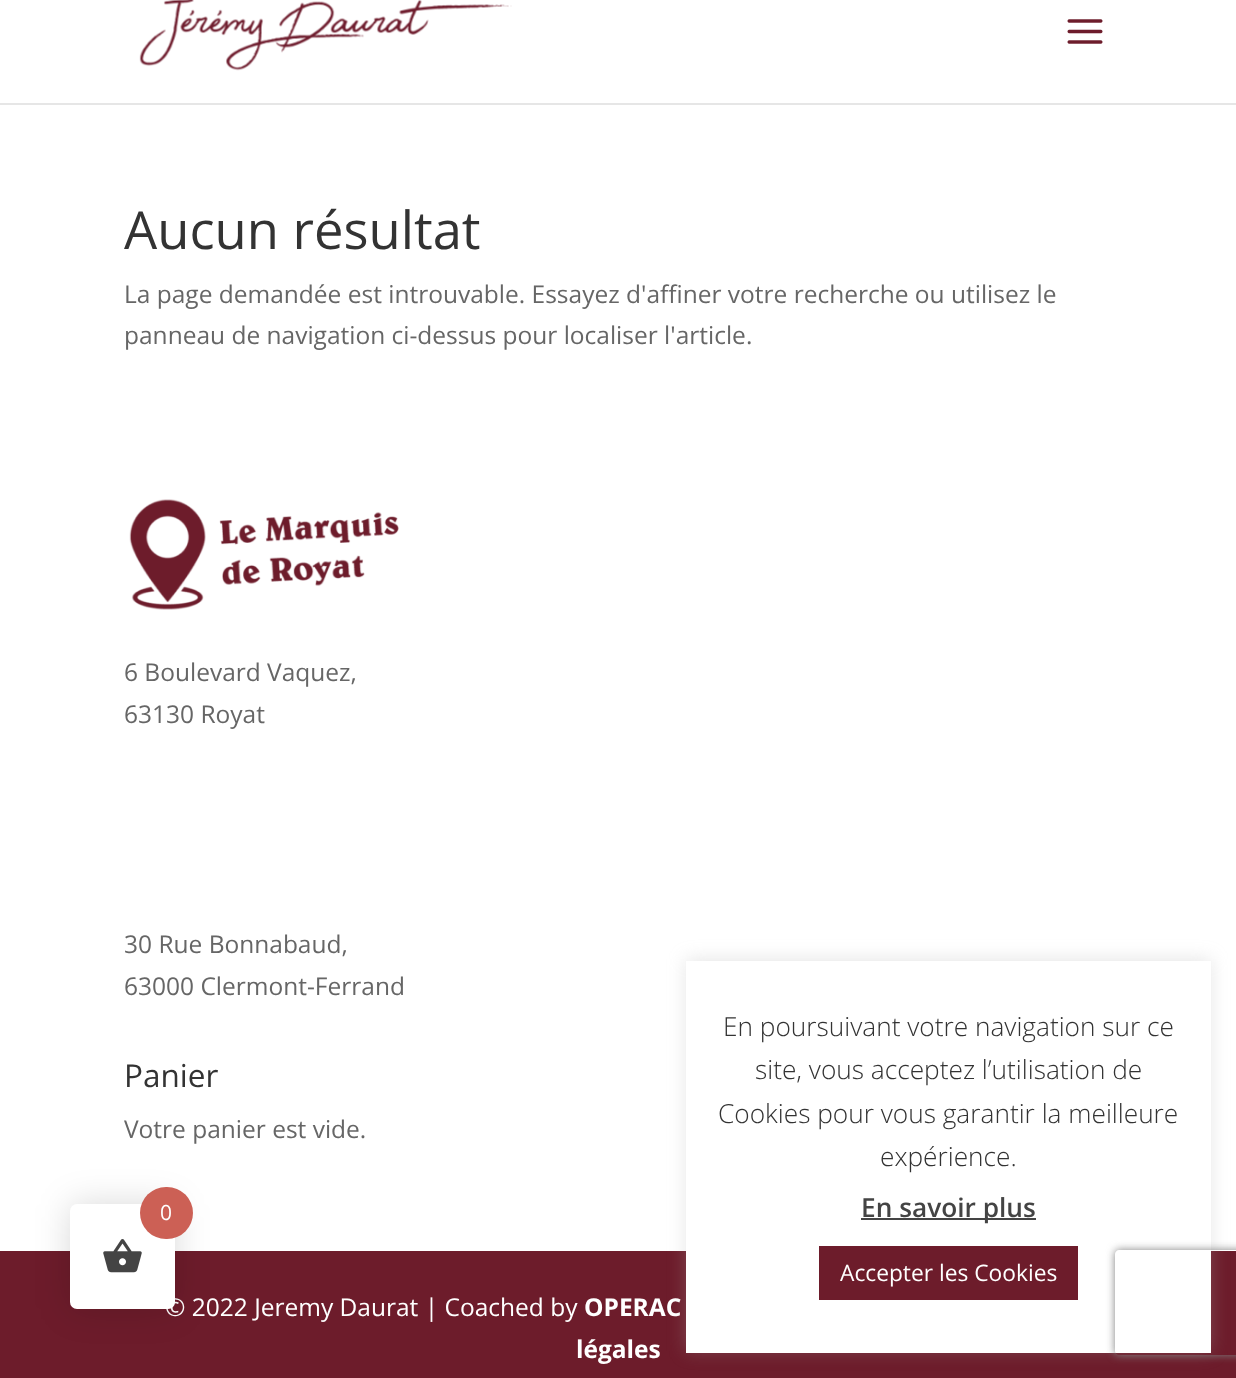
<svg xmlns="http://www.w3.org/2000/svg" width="1236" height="1378">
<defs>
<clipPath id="clip1"><path d="M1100 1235h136v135h-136zm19 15h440c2 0 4 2 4 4v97c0 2-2 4-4 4h-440c-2 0-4-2-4-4v-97c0-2 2-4 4-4z" clip-rule="evenodd"/></clipPath>
</defs>
<rect width="100%" height="100%" fill="#fff"/>
<rect y="103" width="1236" height="2" fill="#e6e6e6"/>
<image x="139" y="0" width="373" height="71" href="media/1.png"/>
<image x="1067" y="19" width="36" height="25" href="media/2.png"/>
<text x="124" y="249" style="font-family:Open Sans;font-size:52.5px;fill:#333">Aucun résultat</text>
<text x="124" y="303" style="font-family:Open Sans;font-size:24.5px;fill:#666">La page demandée est introuvable. Essayez d'affiner votre recherche ou utilisez le</text>
<text x="124" y="344" style="font-family:Open Sans;font-size:24.5px;fill:#666">panneau de navigation ci-dessus pour localiser l'article.</text>
<image x="129" y="499" width="270" height="111" href="media/3.png"/>
<text x="124" y="681" style="font-family:Open Sans;font-size:24.5px;fill:#666">6 Boulevard Vaquez,</text>
<text x="124" y="723" style="font-family:Open Sans;font-size:24.5px;fill:#666">63130 Royat</text>
<text x="124" y="953" style="font-family:Open Sans;font-size:24.5px;fill:#666">30 Rue Bonnabaud,</text>
<text x="124" y="995" style="font-family:Open Sans;font-size:24.5px;fill:#666">63000 Clermont-Ferrand</text>
<text x="124" y="1087" style="font-family:Open Sans;font-size:31.5px;fill:#333">Panier</text>
<text x="124" y="1138" style="font-family:Open Sans;font-size:24.5px;fill:#666">Votre panier est vide.</text>
<rect y="1251" width="1236" height="127" fill="#6d1c2b"/>
<text x="165" y="1316" style="font-family:Open Sans;font-size:24.5px;fill:#fff">© 2022 Jeremy Daurat | Coached by</text>
<text x="584" y="1316" style="font-family:Open Sans;font-size:24.5px;font-weight:bold;fill:#fff">OPERAC</text>
<text x="576" y="1358" style="font-family:Open Sans;font-size:24.5px;font-weight:bold;fill:#fff">légales</text>
<rect x="70" y="1204" width="105" height="105" rx="7" fill="#00000026" filter="blur(17.5px)"/>
<rect x="70" y="1204" width="105" height="105" rx="7" fill="#fff"/>
<rect x="140" y="1187" width="53" height="52" rx="26" fill="#cc6055"/>
<text x="160" y="1220" style="font-family:Open Sans;font-size:21px;fill:#fff">0</text>
<image x="103" y="1239" width="39" height="34" href="media/4.png"/>
<rect x="686" y="959" width="525" height="392" fill="#acabab4d" filter="blur(9px)"/>
<rect x="686" y="961" width="525" height="392" fill="#fff"/>
<text x="723" y="1036" style="font-family:Open Sans;font-size:26.25px;font-weight:300;fill:#333">En poursuivant votre navigation sur ce</text>
<text x="755" y="1079" style="font-family:Open Sans;font-size:26.25px;font-weight:300;fill:#333">site, vous acceptez l’utilisation de</text>
<text x="718" y="1123" style="font-family:Open Sans;font-size:26.25px;font-weight:300;fill:#333">Cookies pour vous garantir la meilleure</text>
<text x="880" y="1166" style="font-family:Open Sans;font-size:26.25px;font-weight:300;fill:#333">expérience.</text>
<rect x="861" y="1218" width="175" height="2" fill="#444"/>
<text x="861" y="1217" style="font-family:Open Sans;font-size:26.25px;font-weight:600;fill:#444">En savoir plus</text>
<rect x="819" y="1246" width="259" height="54" fill="#6d1c2b"/>
<text x="840" y="1281" style="font-family:Open Sans;font-size:22.75px;fill:#fff">Accepter les Cookies</text>
<g clip-path="url(#clip1)">
<rect x="1115" y="1250" width="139" height="105" rx="4" fill="#808080" filter="blur(4.5px)"/>
</g>
</svg>
